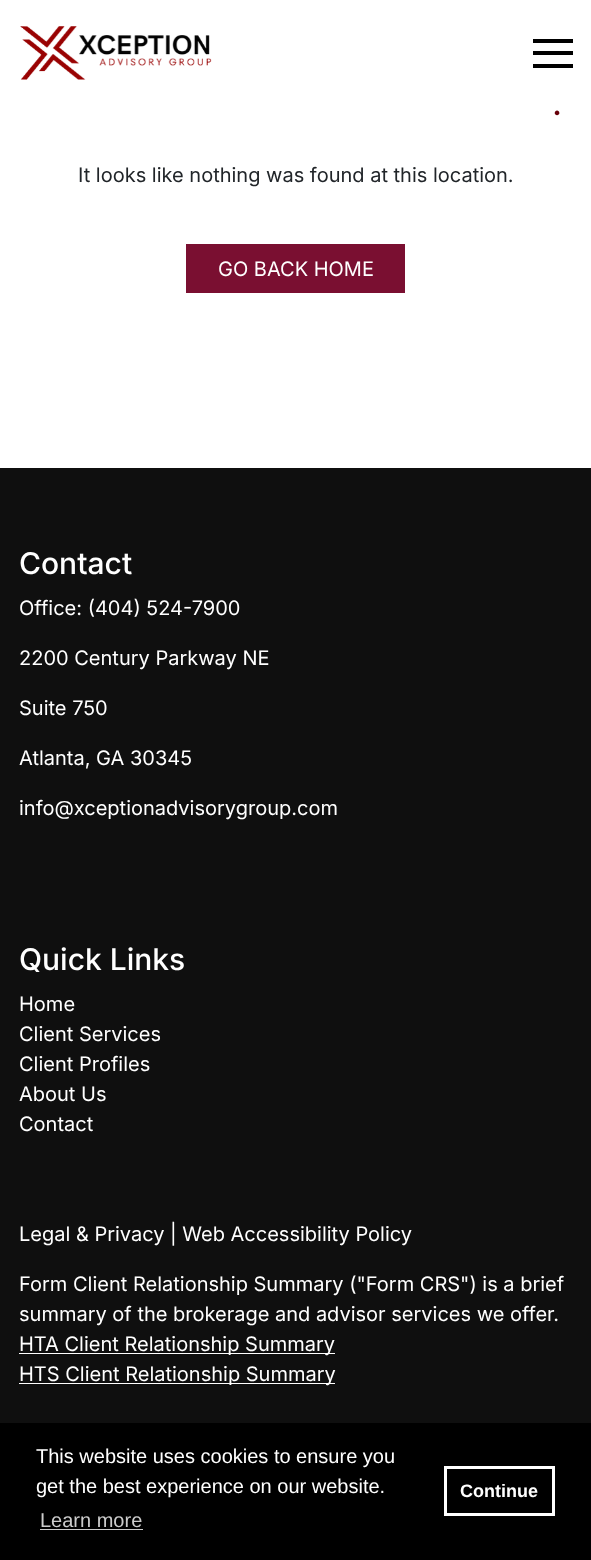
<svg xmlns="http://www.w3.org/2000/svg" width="591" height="1560">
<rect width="100%" height="100%" fill="#fff"/>
<image x="20" y="26" width="192" height="54" href="media/1.png"/>
<rect x="533" y="51" width="40" height="4" fill="#000"/>
<rect x="533" y="39" width="40" height="4" fill="#000"/>
<rect x="533" y="64" width="40" height="4" fill="#000"/>
<text x="552" y="115" style="font-family:Inter;font-size:35px;fill:#670009">.</text>
<text x="78" y="182" style="font-family:Inter;font-size:20px;fill:#212529">It looks like nothing was found at this location.</text>
<rect x="186" y="244" width="219" height="49" fill="#7a0f31"/>
<text x="218" y="276" style="font-family:Inter;font-size:20px;fill:#fff">GO BACK HOME</text>
<rect y="468" width="591" height="955" fill="#0f0f0f"/>
<text x="19" y="574" style="font-family:Inter;font-size:30px;font-weight:500;fill:#fff">Contact</text>
<text x="19" y="615" style="font-family:Inter;font-size:20px;fill:#fff">Office: (404) 524-7900</text>
<text x="19" y="665" style="font-family:Inter;font-size:20px;fill:#fff">2200 Century Parkway NE</text>
<text x="19" y="715" style="font-family:Inter;font-size:20px;fill:#fff">Suite 750</text>
<text x="19" y="765" style="font-family:Inter;font-size:20px;fill:#fff">Atlanta, GA 30345</text>
<text x="19" y="815" style="font-family:Inter;font-size:20px;fill:#fff">info@xceptionadvisorygroup.com</text>
<text x="19" y="970" style="font-family:Inter;font-size:30px;font-weight:500;fill:#fff">Quick Links</text>
<text x="19" y="1011" style="font-family:Inter;font-size:20px;fill:#fff">Home</text>
<text x="19" y="1041" style="font-family:Inter;font-size:20px;fill:#fff">Client Services</text>
<text x="19" y="1071" style="font-family:Inter;font-size:20px;fill:#fff">Client Profiles</text>
<text x="19" y="1101" style="font-family:Inter;font-size:20px;fill:#fff">About Us</text>
<text x="19" y="1131" style="font-family:Inter;font-size:20px;fill:#fff">Contact</text>
<text x="19" y="1241" style="font-family:Inter;font-size:20px;fill:#fff">Legal &amp; Privacy | Web Accessibility Policy</text>
<text x="19" y="1291" style="font-family:Inter;font-size:20px;fill:#fff">Form Client Relationship Summary ("Form CRS") is a brief</text>
<text x="19" y="1321" style="font-family:Inter;font-size:20px;fill:#fff">summary of the brokerage and advisor services we offer.</text>
<rect x="19" y="1353" width="316" height="1" fill="#fff"/>
<text x="19" y="1351" style="font-family:Inter;font-size:20px;fill:#fff">HTA Client Relationship Summary</text>
<rect x="19" y="1383" width="316" height="1" fill="#fff"/>
<text x="19" y="1381" style="font-family:Inter;font-size:20px;fill:#fff">HTS Client Relationship Summary</text>
<rect y="1423" width="591" height="137" fill="#000"/>
<text x="36" y="1463" style="font-family:Liberation Sans;font-size:20px;fill:#fff">This website uses cookies to ensure you</text>
<text x="36" y="1493" style="font-family:Liberation Sans;font-size:20px;fill:#fff">get the best experience on our website.</text>
<text x="40" y="1527" style="font-family:Liberation Sans;font-size:20px;fill:#ccc">Learn more</text>
<rect x="40" y="1529" width="103" height="1" fill="#ccc"/>
<rect x="445.5" y="1467.5" width="108" height="47" fill="none" stroke="#fff" stroke-width="3"/>
<text x="460" y="1497" style="font-family:Liberation Sans;font-size:18px;font-weight:bold;fill:#fff">Continue</text>
</svg>
